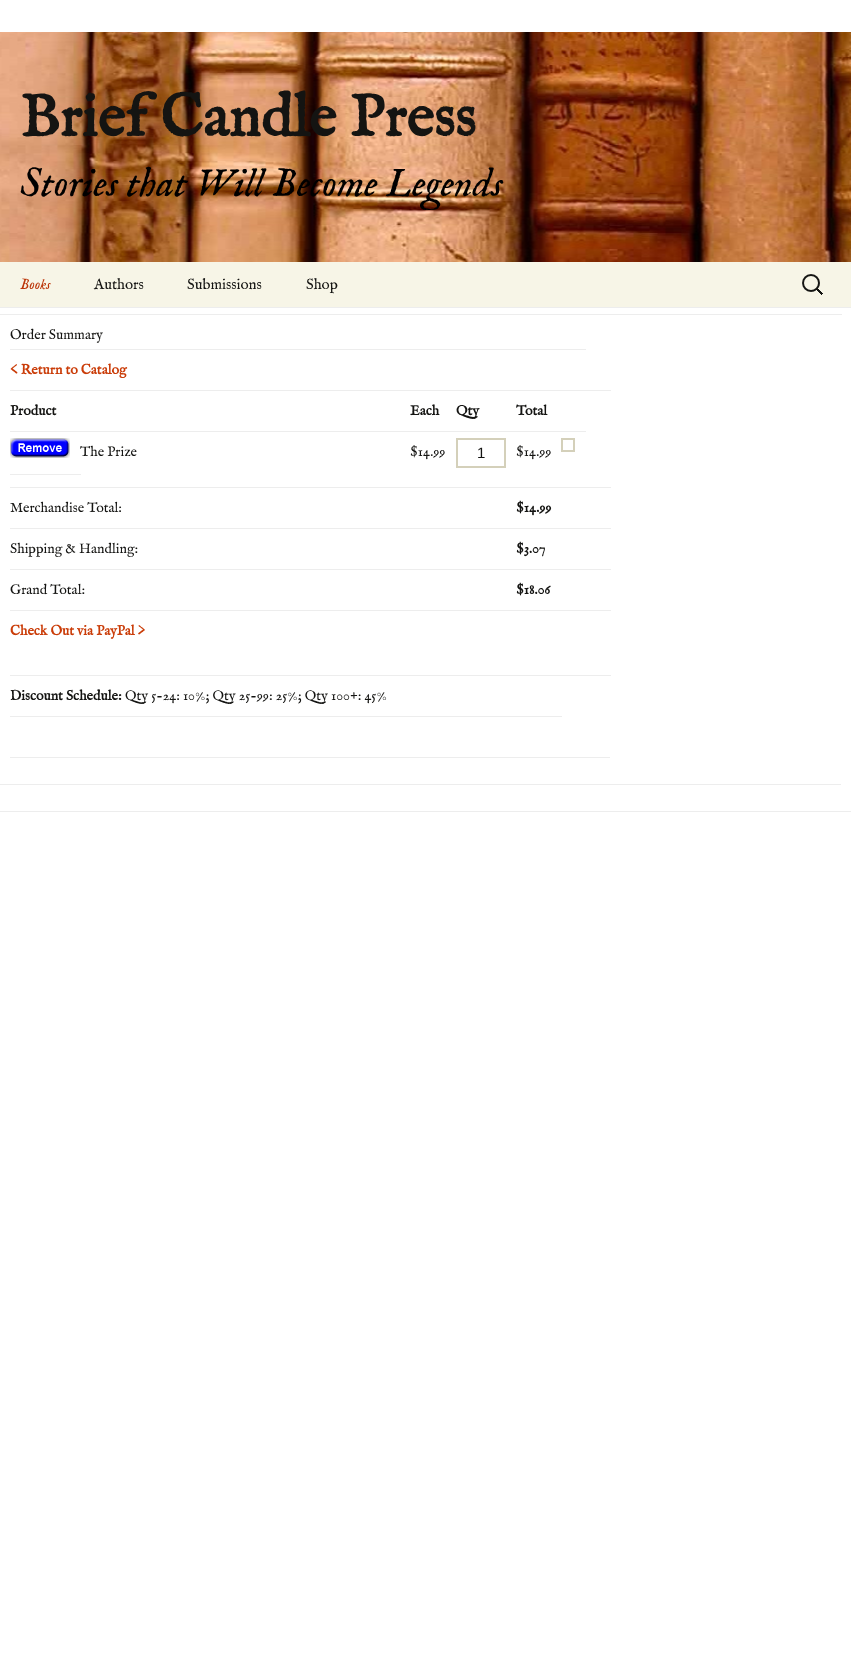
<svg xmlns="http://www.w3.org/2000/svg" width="851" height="1666">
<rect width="100%" height="100%" fill="#fff"/>
<image x="0" y="32" width="851" height="230" href="media/1.png"/>
<text x="20" y="136" style="font-family:IM FELL English;font-size:60px;font-weight:bold;fill:#141412">Brief Candle Press</text>
<text x="20" y="196" style="font-family:IM FELL English;font-size:40px;font-style:italic;fill:#000">Stories that Will Become Legends</text>
<rect y="262" width="851" height="45" fill="#f7f5e7"/>
<text x="20" y="289" style="font-family:IM FELL English;font-size:15px;font-style:italic;fill:#bc360a">Books</text>
<text x="94" y="289" style="font-family:IM FELL English;font-size:15px;fill:#141412">Authors</text>
<text x="187" y="289" style="font-family:IM FELL English;font-size:15px;fill:#141412">Submissions</text>
<text x="306" y="289" style="font-family:IM FELL English;font-size:15px;fill:#141412">Shop</text>
<image x="802" y="274" width="21" height="21" href="media/2.png"/>
<rect y="811" width="851" height="1" fill="#ededed"/>
<rect y="307" width="851" height="1" fill="#ededed"/>
<rect y="784" width="841" height="1" fill="#ededed"/>
<rect y="314" width="842" height="1" fill="#ededed"/>
<text x="10" y="339" style="font-family:IM FELL English;font-size:14px;fill:#141412">Order Summary</text>
<rect x="10" y="757" width="600" height="1" fill="#ededed"/>
<rect x="10" y="349" width="576" height="1" fill="#ededed"/>
<text x="10" y="374" style="font-family:IM FELL English;font-size:14px;font-weight:bold;fill:#ca3c08">&lt; Return to Catalog</text>
<rect x="10" y="390" width="601" height="1" fill="#ededed"/>
<text x="10" y="415" style="font-family:IM FELL English;font-size:14px;font-weight:bold;fill:#141412">Product</text>
<text x="410" y="415" style="font-family:IM FELL English;font-size:14px;font-weight:bold;fill:#141412">Each</text>
<text x="456" y="415" style="font-family:IM FELL English;font-size:14px;font-weight:bold;fill:#141412">Qty</text>
<text x="516" y="415" style="font-family:IM FELL English;font-size:14px;font-weight:bold;fill:#141412">Total</text>
<rect x="10" y="431" width="576" height="1" fill="#ededed"/>
<rect x="562" y="439" width="12" height="12" fill="none" stroke="#d4d0ba" stroke-width="2"/>
<image x="10" y="438" width="60" height="20" href="media/3.png"/>
<text x="80" y="456" style="font-family:IM FELL English;font-size:14px;fill:#141412">The Prize</text>
<text x="410" y="456" style="font-family:IM FELL English;font-size:14px;fill:#141412">$14.99</text>
<rect x="457" y="439" width="48" height="28" fill="none" stroke="#d4d0ba" stroke-width="2"/>
<text x="477" y="458" style="font-family:Liberation Sans;font-size:15px;fill:#141412">1</text>
<text x="516" y="456" style="font-family:IM FELL English;font-size:14px;fill:#141412">$14.99</text>
<rect x="10" y="474" width="71" height="1" fill="#ededed"/>
<rect x="10" y="487" width="601" height="1" fill="#ededed"/>
<text x="10" y="512" style="font-family:IM FELL English;font-size:14px;fill:#141412">Merchandise Total:</text>
<text x="516" y="512" style="font-family:IM FELL English;font-size:14px;font-weight:bold;fill:#141412">$14.99</text>
<rect x="10" y="528" width="601" height="1" fill="#ededed"/>
<text x="10" y="553" style="font-family:IM FELL English;font-size:14px;fill:#141412">Shipping &amp; Handling:</text>
<text x="516" y="553" style="font-family:IM FELL English;font-size:14px;font-weight:bold;fill:#141412">$3.07</text>
<rect x="10" y="569" width="601" height="1" fill="#ededed"/>
<text x="10" y="594" style="font-family:IM FELL English;font-size:14px;fill:#141412">Grand Total:</text>
<text x="516" y="594" style="font-family:IM FELL English;font-size:14px;font-weight:bold;fill:#141412">$18.06</text>
<rect x="10" y="610" width="601" height="1" fill="#ededed"/>
<text x="10" y="635" style="font-family:IM FELL English;font-size:14px;font-weight:bold;fill:#ca3c08">Check Out via PayPal &gt;</text>
<rect x="10" y="675" width="601" height="1" fill="#ededed"/>
<text x="10" y="700" style="font-family:IM FELL English;font-size:14px;font-weight:bold;fill:#141412">Discount Schedule:</text>
<text x="125" y="700" style="font-family:IM FELL English;font-size:14px;fill:#141412">Qty 5-24: 10%; Qty 25-99: 25%; Qty 100+: 45%</text>
<rect x="10" y="716" width="552" height="1" fill="#ededed"/>
</svg>
